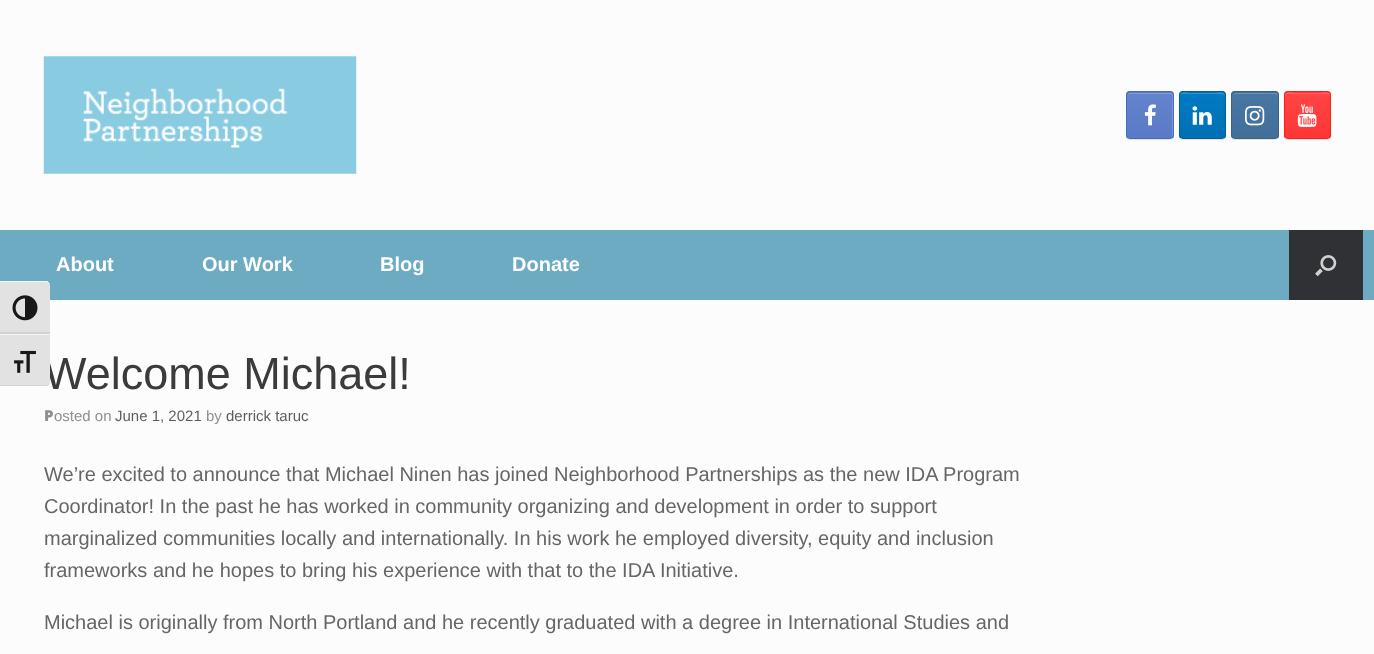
<svg xmlns="http://www.w3.org/2000/svg" width="1374" height="654">
<defs>
<clipPath id="clip1"><rect x="1126" y="91" width="48" height="48" rx="4"/></clipPath>
<linearGradient id="g1" gradientUnits="userSpaceOnUse" x1="1128" y1="93" x2="1128" y2="48"><stop offset="0" stop-color="#597ac7"/><stop offset="1" stop-color="#6483cb"/></linearGradient>
<linearGradient id="g2" gradientUnits="userSpaceOnUse" x1="1128" y1="138" x2="1128" y2="93"><stop offset="0" stop-color="#597ac7"/><stop offset="1" stop-color="#6483cb"/></linearGradient>
<clipPath id="clip2"><rect x="1179" y="91" width="47" height="48" rx="4"/></clipPath>
<linearGradient id="g3" gradientUnits="userSpaceOnUse" x1="1180" y1="93" x2="1180" y2="48"><stop offset="0" stop-color="#0070b4"/><stop offset="1" stop-color="#007ac3"/></linearGradient>
<linearGradient id="g4" gradientUnits="userSpaceOnUse" x1="1180" y1="138" x2="1180" y2="93"><stop offset="0" stop-color="#0070b4"/><stop offset="1" stop-color="#007ac3"/></linearGradient>
<clipPath id="clip3"><rect x="1231" y="91" width="48" height="48" rx="4"/></clipPath>
<linearGradient id="g5" gradientUnits="userSpaceOnUse" x1="1233" y1="93" x2="1233" y2="48"><stop offset="0" stop-color="#426f98"/><stop offset="1" stop-color="#4777a3"/></linearGradient>
<linearGradient id="g6" gradientUnits="userSpaceOnUse" x1="1233" y1="138" x2="1233" y2="93"><stop offset="0" stop-color="#426f98"/><stop offset="1" stop-color="#4777a3"/></linearGradient>
<clipPath id="clip4"><rect x="1284" y="91" width="47" height="48" rx="4"/></clipPath>
<linearGradient id="g7" gradientUnits="userSpaceOnUse" x1="1285" y1="93" x2="1285" y2="48"><stop offset="0" stop-color="#ff3635"/><stop offset="1" stop-color="#ff4544"/></linearGradient>
<linearGradient id="g8" gradientUnits="userSpaceOnUse" x1="1285" y1="138" x2="1285" y2="93"><stop offset="0" stop-color="#ff3635"/><stop offset="1" stop-color="#ff4544"/></linearGradient>
</defs>
<rect width="100%" height="100%" fill="#fcfcfc"/>
<rect y="230" width="1374" height="70" fill="#6cabc1"/>
<path d="M0 281h45c3 0 5 2 5 5v48h-50z" fill="#e2e2e2"/>
<path d="M0 282h45c3 0 5 2 5 4c0-2-1-4-3-5h-47z" fill="#f5f5f5"/>
<rect y="332" width="50" height="2" fill="#d2d2d2"/>
<image x="12" y="295" width="26" height="26" href="media/1.png"/>
<text x="44" y="389" style="font-family:Liberation Sans;font-size:45px;fill:#3b3b3b">Welcome Michael!</text>
<path d="M0 334h50v47c0 3-2 5-5 5h-45z" fill="#e2e2e2"/>
<rect y="334" width="50" height="1" fill="#f5f5f5"/>
<path d="M0 385v1h45c3 0 5-2 5-5c0 2-2 4-5 4z" fill="#d2d2d2"/>
<image x="14" y="350" width="22" height="23" href="media/2.png"/>
<image x="43" y="56" width="314" height="118" href="media/3.png"/>
<rect x="1126" y="93" width="48" height="47" rx="4" fill="#0000001a" filter="blur(0.5px)"/>
<g clip-path="url(#clip1)">
<rect x="1126" y="91" width="48" height="2" fill="url(#g1)"/>
<rect x="1126" y="93" width="48" height="45" fill="url(#g2)"/>
</g>
<path d="M1130 94h33c13 0 9 0 9 15v29c0-1 1-2 1-2v-40c0-2-1-3-3-3h-40c-1 0-2 1-2 3c0-1 1-2 2-2z" fill="#ffffff33"/>
<rect x="1126.5" y="91.5" width="47" height="47" rx="3.5" fill="none" stroke="#466bc1"/>
<image x="1144" y="104" width="12" height="22" href="media/4.png"/>
<rect x="1179" y="93" width="47" height="47" rx="4" fill="#0000001a" filter="blur(0.5px)"/>
<g clip-path="url(#clip2)">
<rect x="1179" y="91" width="47" height="2" fill="url(#g3)"/>
<rect x="1179" y="93" width="47" height="45" fill="url(#g4)"/>
</g>
<path d="M1182 94h40c2 0 3 1 3 2c0-5-6-3-9-3h-27c-3 0-9-2-9 3c0-1 1-2 2-2z" fill="#3395cf"/>
<rect x="1179.5" y="91.5" width="46" height="47" rx="3.5" fill="none" stroke="#00609b"/>
<image x="1192" y="106" width="20" height="19" href="media/5.png"/>
<rect x="1231" y="93" width="48" height="47" rx="4" fill="#0000001a" filter="blur(0.5px)"/>
<g clip-path="url(#clip3)">
<rect x="1231" y="91" width="48" height="2" fill="url(#g5)"/>
<rect x="1231" y="93" width="48" height="45" fill="url(#g6)"/>
</g>
<path d="M1235 94h40c1 0 3 1 3 2c0-2-1-3-2-3h-40c-2 0-2 1-3 2z" fill="#6c92b5"/>
<rect x="1231.5" y="91.5" width="47" height="47" rx="3.5" fill="none" stroke="#3a6286"/>
<image x="1245" y="106" width="20" height="20" href="media/6.png"/>
<rect x="1284" y="93" width="47" height="47" rx="4" fill="#0000001a" filter="blur(0.5px)"/>
<g clip-path="url(#clip4)">
<rect x="1284" y="91" width="47" height="2" fill="url(#g7)"/>
<rect x="1284" y="93" width="47" height="45" fill="url(#g8)"/>
</g>
<path d="M1288 94h40c1 0 2 1 2 2c0-5-6-3-9-3h-27c-3 0-9-2-9 3c0-1 1-2 3-2z" fill="#ff6a69"/>
<rect x="1284.5" y="91.5" width="46" height="47" rx="3.5" fill="none" stroke="#ff1d1b"/>
<image x="1297" y="104" width="20" height="23" href="media/7.png"/>
<text x="56" y="271" style="font-family:Liberation Sans;font-size:20px;font-weight:bold;fill:#fff">About</text>
<text x="202" y="271" style="font-family:Liberation Sans;font-size:20px;font-weight:bold;fill:#fff">Our Work</text>
<text x="380" y="271" style="font-family:Liberation Sans;font-size:20px;font-weight:bold;fill:#fff">Blog</text>
<text x="512" y="271" style="font-family:Liberation Sans;font-size:20px;font-weight:bold;fill:#fff">Donate</text>
<rect x="1289" y="230" width="74" height="70" fill="#303134"/>
<image x="1315" y="255" width="22" height="22" href="media/8.png"/>
<text x="44" y="421" style="font-family:Noto Sans;font-size:15px;font-weight:900;fill:#8f8f8f">P</text>
<text x="54" y="421" style="font-family:Liberation Sans;font-size:15px;fill:#8f8f8f">osted on</text>
<text x="115" y="421" style="font-family:Liberation Sans;font-size:15px;fill:#5e5e5e">June 1, 2021</text>
<text x="206" y="421" style="font-family:Liberation Sans;font-size:15px;fill:#8f8f8f">by</text>
<text x="226" y="421" style="font-family:Liberation Sans;font-size:15px;fill:#5e5e5e">derrick taruc</text>
<text x="44" y="481" style="font-family:Liberation Sans;font-size:20px;fill:#666">We’re excited to announce that Michael Ninen has joined Neighborhood Partnerships as the new IDA Program</text>
<text x="44" y="513" style="font-family:Liberation Sans;font-size:20px;fill:#666">Coordinator! In the past he has worked in community organizing and development in order to support</text>
<text x="44" y="545" style="font-family:Liberation Sans;font-size:20px;fill:#666">marginalized communities locally and internationally. In his work he employed diversity, equity and inclusion</text>
<text x="44" y="577" style="font-family:Liberation Sans;font-size:20px;fill:#666">frameworks and he hopes to bring his experience with that to the IDA Initiative.</text>
<text x="44" y="629" style="font-family:Liberation Sans;font-size:20px;fill:#666">Michael is originally from North Portland and he recently graduated with a degree in International Studies and</text>
</svg>
